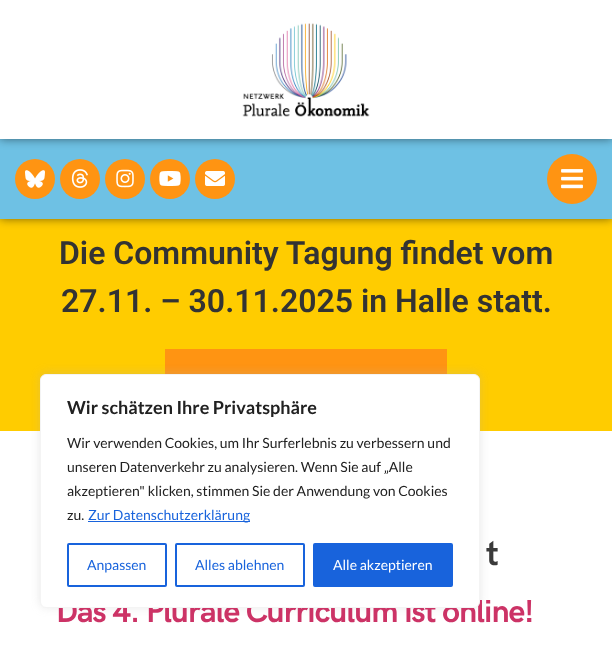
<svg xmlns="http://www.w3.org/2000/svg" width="612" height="648">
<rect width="100%" height="100%" fill="#fff"/>
<rect y="219" width="612" height="212" fill="#fc0"/>
<rect y="139" width="612" height="80" fill="#00000080" filter="blur(5px)"/>
<rect y="139" width="612" height="80" fill="#6ec1e4"/>
<circle cx="572" cy="179" r="25" fill="#ff9412"/>
<rect width="612" height="139" fill="#00000080" filter="blur(5px)"/>
<rect width="612" height="139" fill="#fff"/>
<image x="242" y="23" width="128" height="94" href="media/1.png"/>
<circle cx="35" cy="179" r="20" fill="#ff9412"/>
<image x="25" y="170" width="20" height="18" href="media/2.png"/>
<circle cx="80" cy="179" r="20" fill="#ff9412"/>
<image x="71" y="169" width="17" height="19" href="media/3.png"/>
<circle cx="125" cy="179" r="20" fill="#ff9412"/>
<image x="116" y="169" width="18" height="19" href="media/4.png"/>
<circle cx="170" cy="179" r="20" fill="#ff9412"/>
<image x="159" y="171" width="22" height="15" href="media/5.png"/>
<circle cx="215" cy="179" r="20" fill="#ff9412"/>
<image x="205" y="171" width="20" height="15" href="media/6.png"/>
<image x="561" y="169" width="22" height="20" href="media/7.png"/>
<text x="59" y="264" style="font-family:Roboto;font-size:32px;font-weight:600;fill:#333">Die Community Tagung findet vom</text>
<text x="61" y="312" style="font-family:Roboto;font-size:32px;font-weight:600;fill:#333">27.11. – 30.11.2025 in Halle statt.</text>
<rect x="165" y="349" width="282" height="25" fill="#ff9412"/>
<rect x="40" y="373" width="440" height="234" rx="6" fill="#acabab4d" filter="blur(5px)"/>
<text x="56" y="622" style="font-family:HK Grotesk;font-size:32px;font-weight:bold;letter-spacing:-1px;fill:#c36">Das 4. Plurale Curriculum ist online!</text>
<rect x="40.5" y="374.5" width="439" height="233" rx="5.5" fill="#fff" stroke="#f4f4f4"/>
<text x="67" y="414" style="font-family:Lato;font-size:18px;font-weight:bold;fill:#212121">Wir schätzen Ihre Privatsphäre</text>
<text x="67" y="448" style="font-family:Lato;font-size:14px;fill:#212121">Wir verwenden Cookies, um Ihr Surferlebnis zu verbessern und</text>
<text x="67" y="472" style="font-family:Lato;font-size:14px;fill:#212121">unseren Datenverkehr zu analysieren. Wenn Sie auf „Alle</text>
<text x="67" y="496" style="font-family:Lato;font-size:14px;fill:#212121">akzeptieren" klicken, stimmen Sie der Anwendung von Cookies</text>
<text x="67" y="520" style="font-family:Lato;font-size:14px;fill:#212121">zu.</text>
<rect x="88" y="521" width="162" height="1" fill="#1863dc"/>
<text x="88" y="520" style="font-family:Lato;font-size:14px;fill:#1863dc">Zur Datenschutzerklärung</text>
<rect x="68" y="544" width="98" height="42" rx="1" fill="none" stroke="#1863dc" stroke-width="2"/>
<text x="87" y="570" style="font-family:Lato;font-size:14px;fill:#1863dc">Anpassen</text>
<rect x="176" y="544" width="128" height="42" rx="1" fill="none" stroke="#1863dc" stroke-width="2"/>
<text x="195" y="570" style="font-family:Lato;font-size:14px;fill:#1863dc">Alles ablehnen</text>
<rect x="314" y="544" width="138" height="42" rx="1" fill="#1863dc" stroke="#1863dc" stroke-width="2"/>
<text x="333" y="570" style="font-family:Lato;font-size:14px;fill:#fff">Alle akzeptieren</text>
<text x="486" y="565" style="font-family:HK Grotesk;font-size:35px;font-weight:bold;letter-spacing:-1px;fill:#3a3a3a">t</text>
</svg>
